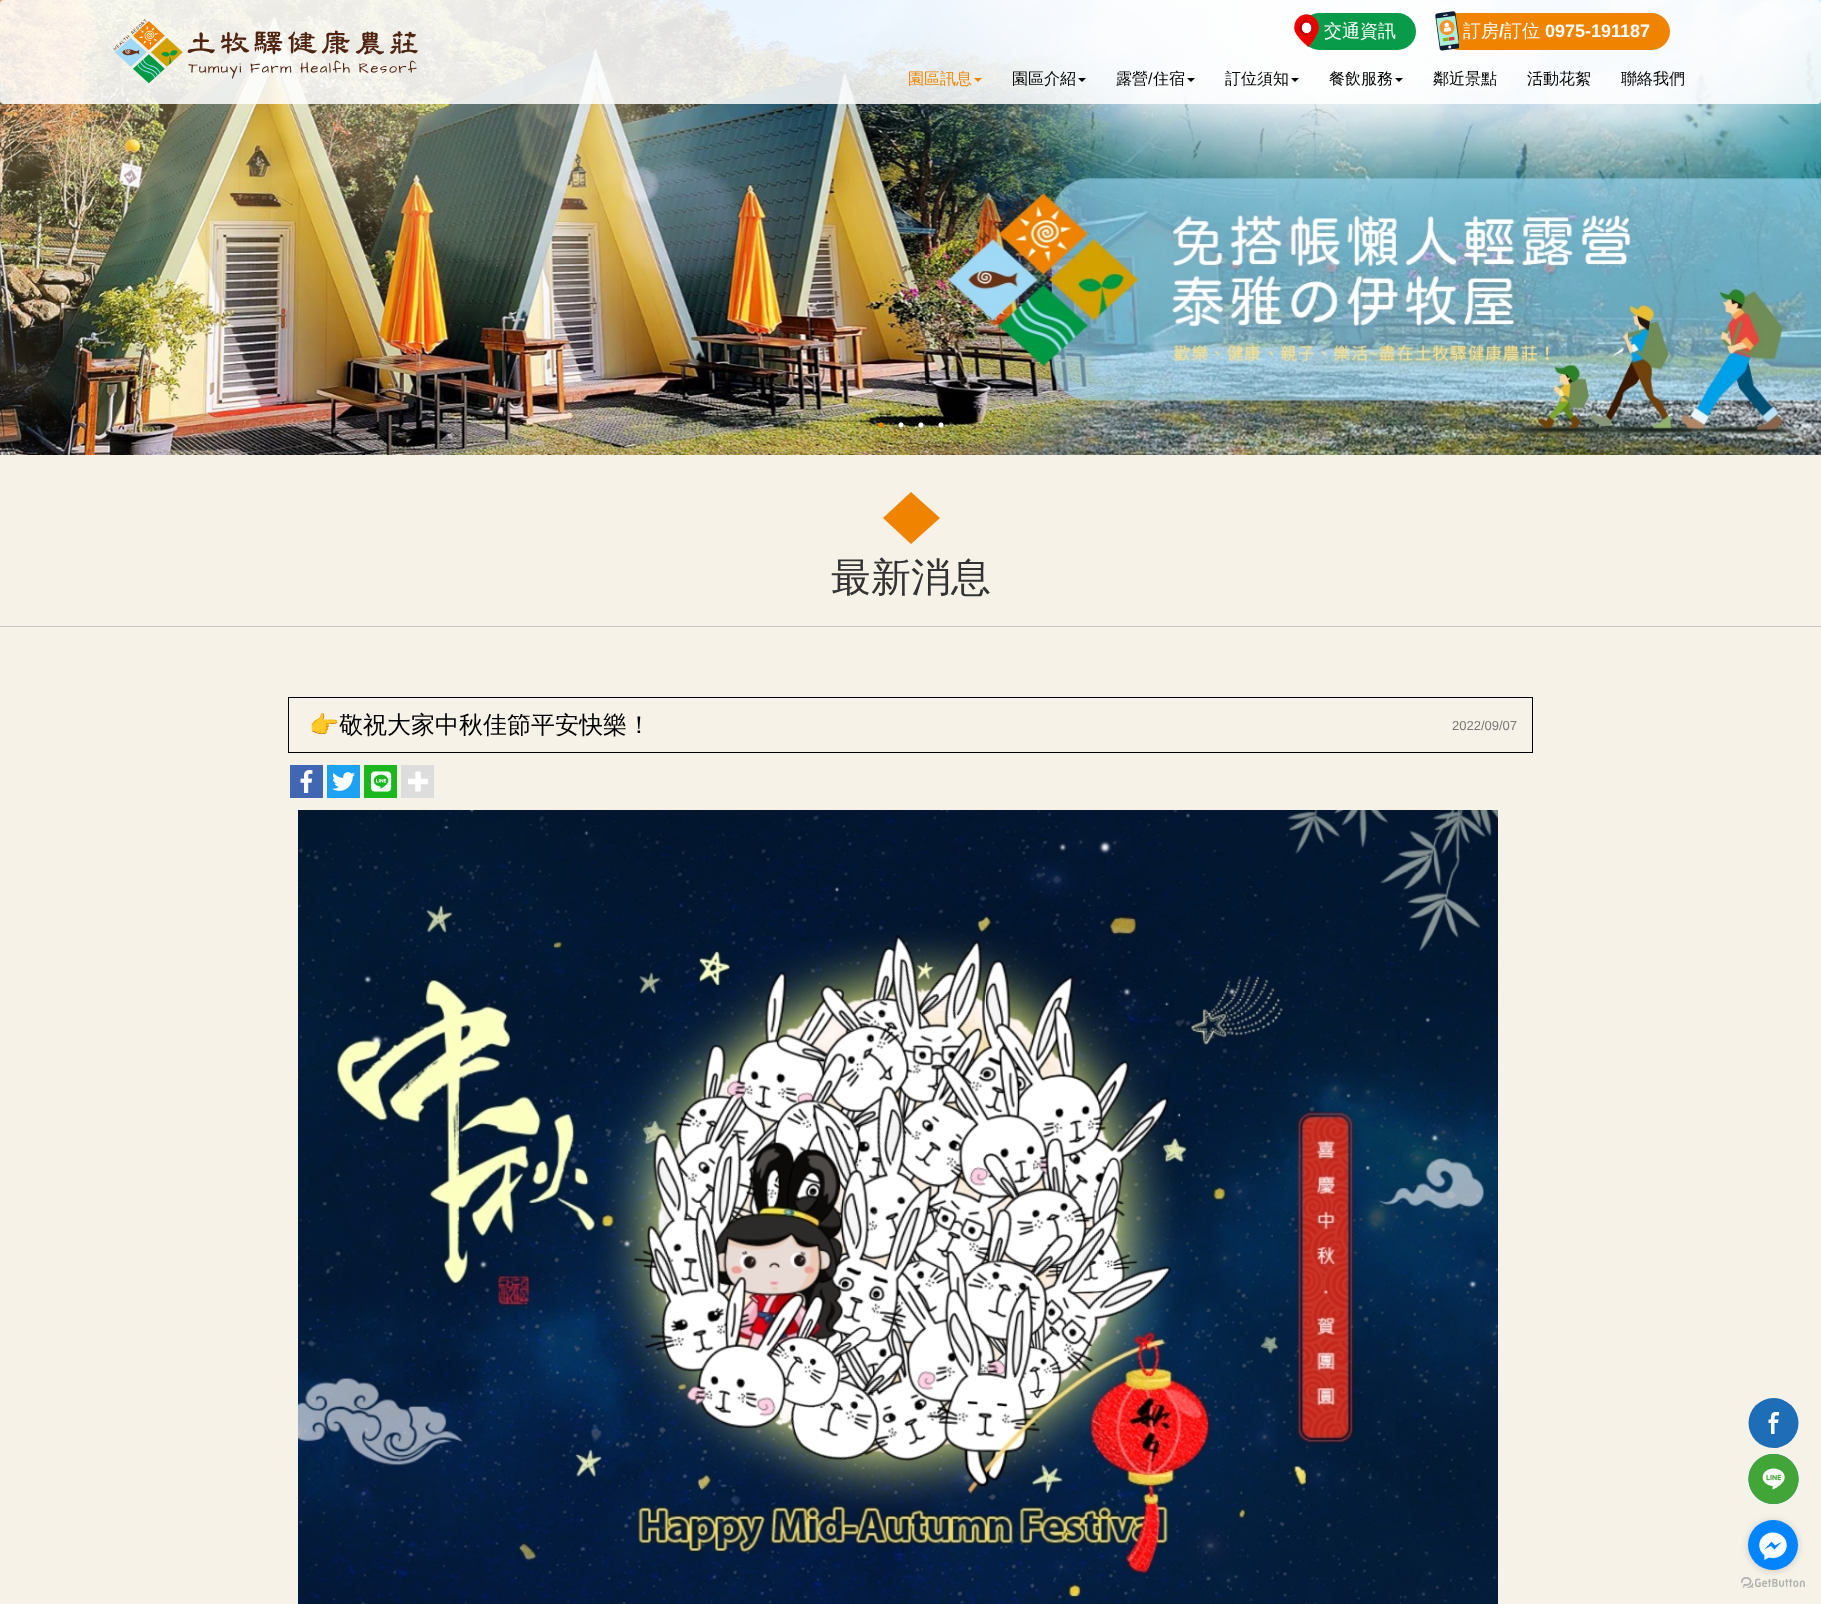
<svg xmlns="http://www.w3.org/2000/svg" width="1821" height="1604">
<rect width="100%" height="100%" fill="#f6f2e7"/>
<image x="0" y="0" width="1821" height="455" href="media/1.png"/>
<image x="878" y="422" width="6" height="6" href="media/2.png"/>
<image x="898" y="422" width="6" height="6" href="media/3.png"/>
<image x="918" y="422" width="6" height="6" href="media/4.png"/>
<image x="938" y="422" width="6" height="6" href="media/5.png"/>
<rect width="1821" height="104" rx="4" fill="#ffffffdb"/>
<image x="113" y="19" width="305" height="65" href="media/6.png"/>
<rect x="1301" y="13" width="115" height="37" rx="18.5" fill="#089c4a"/>
<image x="1294" y="14" width="25" height="33" href="media/7.png"/>
<text x="1324" y="37" style="font-family:WenQuanYi Zen Hei;font-size:18px;font-weight:500;fill:#fff">交通資訊</text>
<rect x="1440" y="13" width="230" height="37" rx="18.5" fill="#f08300"/>
<image x="1435" y="11" width="24" height="40" href="media/8.png"/>
<text x="1463" y="37" style="font-family:WenQuanYi Zen Hei;font-size:18px;font-weight:500;fill:#fff">訂房</text>
<text x="1499" y="37" style="font-family:Liberation Sans;font-size:18px;font-weight:bold;fill:#fff">/</text>
<text x="1504" y="37" style="font-family:WenQuanYi Zen Hei;font-size:18px;font-weight:500;fill:#fff">訂位</text>
<text x="1545" y="37" style="font-family:Liberation Sans;font-size:18px;font-weight:bold;fill:#fff">0975-191187</text>
<text x="908" y="84" style="font-family:WenQuanYi Zen Hei;font-size:16px;font-weight:500;fill:#f08300">園區訊息</text>
<path d="M974 78h8l-4 4z" fill="#f08300"/>
<text x="1012" y="84" style="font-family:WenQuanYi Zen Hei;font-size:16px;font-weight:500;fill:#000">園區介紹</text>
<path d="M1078 78h8l-4 4z" fill="#000"/>
<text x="1116" y="84" style="font-family:WenQuanYi Zen Hei;font-size:16px;font-weight:500;fill:#000">露營</text>
<text x="1148" y="84" style="font-family:Liberation Sans;font-size:16px;fill:#000">/</text>
<text x="1153" y="84" style="font-family:WenQuanYi Zen Hei;font-size:16px;font-weight:500;fill:#000">住宿</text>
<path d="M1187 78h8l-4 4z" fill="#000"/>
<text x="1225" y="84" style="font-family:WenQuanYi Zen Hei;font-size:16px;font-weight:500;fill:#000">訂位須知</text>
<path d="M1291 78h8l-4 4z" fill="#000"/>
<text x="1329" y="84" style="font-family:WenQuanYi Zen Hei;font-size:16px;font-weight:500;fill:#000">餐飲服務</text>
<path d="M1395 78h8l-4 4z" fill="#000"/>
<text x="1433" y="84" style="font-family:WenQuanYi Zen Hei;font-size:16px;font-weight:500;fill:#000">鄰近景點</text>
<text x="1527" y="84" style="font-family:WenQuanYi Zen Hei;font-size:16px;font-weight:500;fill:#000">活動花絮</text>
<text x="1621" y="84" style="font-family:WenQuanYi Zen Hei;font-size:16px;font-weight:500;fill:#000">聯絡我們</text>
<rect y="626" width="1821" height="1" fill="#c5c5c5"/>
<path d="M883 518l28 26l29-26l-29-26z" fill="#f08300" fill-rule="evenodd"/>
<text x="831" y="591" style="font-family:WenQuanYi Zen Hei;font-size:40px;font-weight:500;fill:#333">最新消息</text>
<rect x="288.5" y="697.5" width="1244" height="55" fill="none" stroke="#000"/>
<text x="309" y="733" style="font-family:Noto Color Emoji;font-size:24px;font-weight:bold;fill:#000">👉</text>
<text x="339" y="733" style="font-family:WenQuanYi Zen Hei;font-size:24px;font-weight:500;fill:#000">敬祝大家中秋佳節平安快樂！</text>
<text x="1452" y="730" style="font-family:Liberation Sans;font-size:13px;fill:#777">2022/09/07</text>
<rect x="290" y="765" width="33" height="33" fill="#4267b2"/>
<image x="300" y="770" width="13" height="23" href="media/9.png"/>
<rect x="327" y="765" width="33" height="33" fill="#1da1f2"/>
<image x="332" y="772" width="23" height="19" href="media/10.png"/>
<rect x="364" y="765" width="33" height="33" fill="#1bb71f"/>
<image x="371" y="771" width="21" height="21" href="media/11.png"/>
<rect x="401" y="765" width="33" height="33" fill="#ddd"/>
<image x="408" y="771" width="21" height="21" href="media/12.png"/>
<image x="298" y="810" width="1200" height="794" href="media/13.png"/>
<circle cx="1773.5" cy="1423" r="25" fill="#1e6eb7"/>
<path d="M1774.5 1434v-11h3.5l.5-3.5h-4c0-4.5 .5-4 4.5-4v-3.5c-7 0-8 0-8 7.5h-2.5v3.5h2.5v11z" fill="#fff" fill-rule="evenodd"/>
<image x="1748" y="1454" width="51" height="50" href="media/14.png"/>
<image x="1741" y="1577" width="64" height="11" href="media/16.png"/>
<rect x="1748" y="1521" width="50" height="50" rx="25" fill="#88888866" filter="blur(3.5px)"/>
<circle cx="1773" cy="1545" r="25" fill="#0084ff"/>
<image x="1759" y="1532" width="28" height="28" href="media/15.png"/>
</svg>
